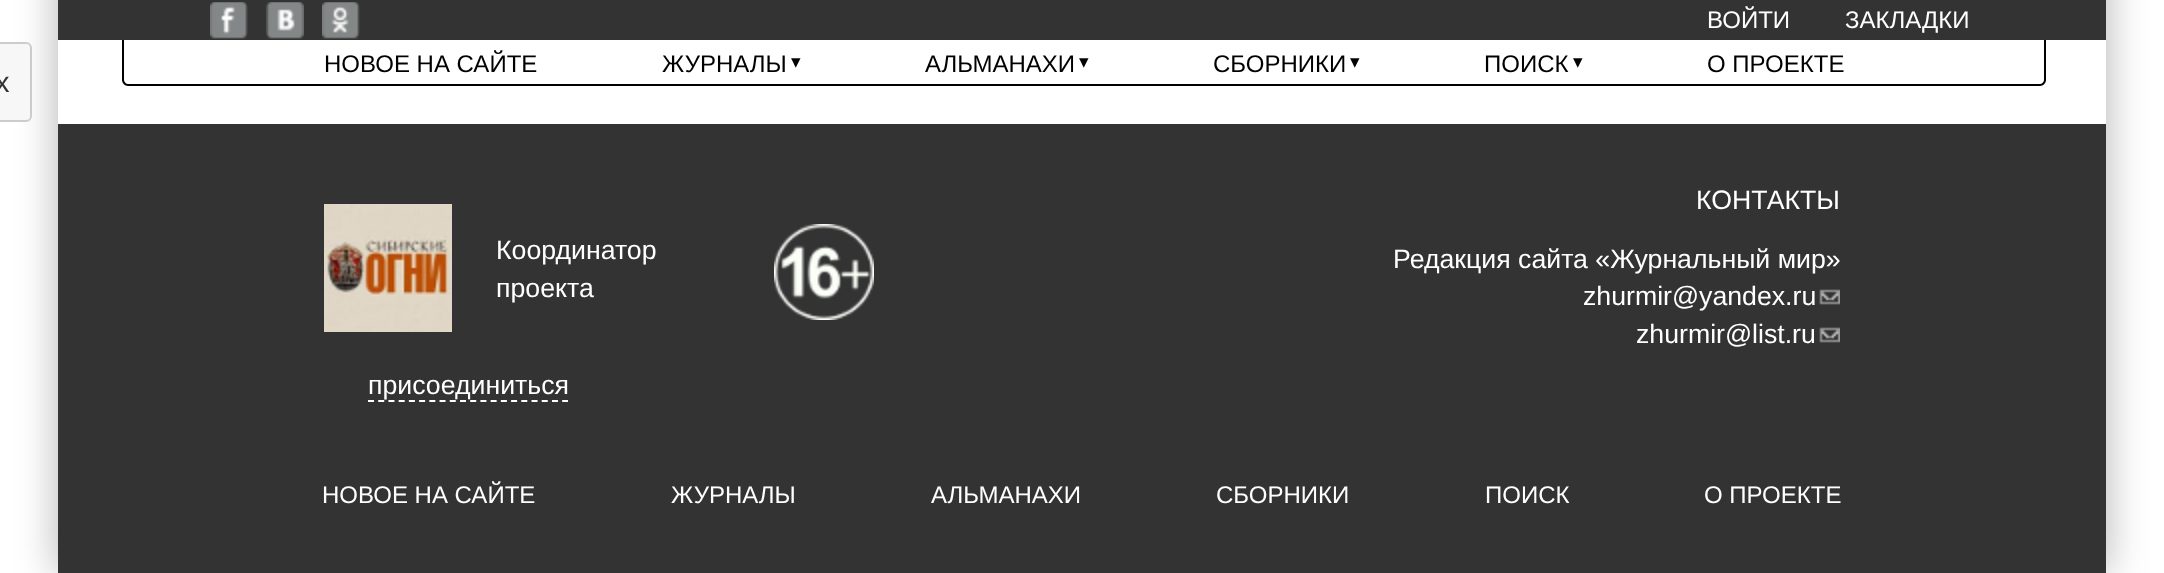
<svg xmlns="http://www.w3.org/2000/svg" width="2164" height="573">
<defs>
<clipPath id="clip1"><path d="M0 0h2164v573h-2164zm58-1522h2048v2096h-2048z" clip-rule="evenodd"/></clipPath>
</defs>
<rect width="100%" height="100%" fill="#fff"/>
<g clip-path="url(#clip1)">
<rect x="58" y="-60" width="2048" height="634" fill="#0000004d" filter="blur(20px)"/>
</g>
<rect x="-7" y="43" width="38" height="78" rx="5" fill="#f7f7f7" stroke="#ccc" stroke-width="2"/>
<text x="-5" y="92" style="font-family:Liberation Sans;font-size:29px;fill:#333">х</text>
<rect x="58" width="2048" height="40" fill="#333"/>
<image x="210" y="2" width="38" height="37" href="media/1.png"/>
<image x="266" y="2" width="38" height="37" href="media/2.png"/>
<image x="322" y="2" width="38" height="37" href="media/3.png"/>
<text x="1707" y="28" style="font-family:Liberation Sans;font-size:24px;fill:#fff">ВОЙТИ</text>
<text x="1845" y="28" style="font-family:Liberation Sans;font-size:24px;fill:#fff">ЗАКЛАДКИ</text>
<path d="M122 40h1924v40c0 3-3 6-6 6h-1912c-3 0-6-3-6-6zm2 0h1920v40c0 2-2 4-4 4h-1912c-2 0-4-2-4-4z" fill="#000" fill-rule="evenodd"/>
<text x="324" y="72" style="font-family:Liberation Sans;font-size:24px;fill:#000">НОВОЕ НА САЙТЕ</text>
<text x="662" y="72" style="font-family:Liberation Sans;font-size:24px;fill:#000">ЖУРНАЛЫ</text>
<text x="791" y="68" style="font-family:DejaVu Sans;font-size:19px;fill:#000">▾</text>
<text x="925" y="72" style="font-family:Liberation Sans;font-size:24px;fill:#000">АЛЬМАНАХИ</text>
<text x="1079" y="68" style="font-family:DejaVu Sans;font-size:19px;fill:#000">▾</text>
<text x="1213" y="72" style="font-family:Liberation Sans;font-size:24px;fill:#000">СБОРНИКИ</text>
<text x="1350" y="68" style="font-family:DejaVu Sans;font-size:19px;fill:#000">▾</text>
<text x="1484" y="72" style="font-family:Liberation Sans;font-size:24px;fill:#000">ПОИСК</text>
<text x="1573" y="68" style="font-family:DejaVu Sans;font-size:19px;fill:#000">▾</text>
<text x="1707" y="72" style="font-family:Liberation Sans;font-size:24px;fill:#000">О ПРОЕКТЕ</text>
<rect x="58" y="124" width="2048" height="449" fill="#333"/>
<image x="324" y="204" width="128" height="128" href="media/4.png"/>
<text x="496" y="259" style="font-family:Liberation Sans;font-size:26.7px;fill:#fff">Координатор</text>
<text x="496" y="297" style="font-family:Liberation Sans;font-size:26.7px;fill:#fff">проекта</text>
<image x="774" y="224" width="100" height="96" href="media/5.png"/>
<text x="368" y="394" style="font-family:Liberation Sans;font-size:26.7px;fill:#fff">присоединиться</text>
<path d="M368 401h200" fill="none" stroke="#fff" stroke-width="2" stroke-dasharray="6 4.22"/>
<text x="1696" y="209" style="font-family:Liberation Sans;font-size:26.7px;fill:#fff">КОНТАКТЫ</text>
<text x="1393" y="268" style="font-family:Liberation Sans;font-size:26.7px;fill:#fff">Редакция сайта «Журнальный мир»</text>
<text x="1583" y="305" style="font-family:Liberation Sans;font-size:26.7px;fill:#fff">zhurmir@yandex.ru</text>
<image x="1819" y="289" width="21" height="16" href="media/6.png"/>
<text x="1636" y="343" style="font-family:Liberation Sans;font-size:26.7px;fill:#fff">zhurmir@list.ru</text>
<image x="1819" y="327" width="21" height="16" href="media/6.png"/>
<text x="322" y="503" style="font-family:Liberation Sans;font-size:24px;fill:#fff">НОВОЕ НА САЙТЕ</text>
<text x="671" y="503" style="font-family:Liberation Sans;font-size:24px;fill:#fff">ЖУРНАЛЫ</text>
<text x="931" y="503" style="font-family:Liberation Sans;font-size:24px;fill:#fff">АЛЬМАНАХИ</text>
<text x="1216" y="503" style="font-family:Liberation Sans;font-size:24px;fill:#fff">СБОРНИКИ</text>
<text x="1485" y="503" style="font-family:Liberation Sans;font-size:24px;fill:#fff">ПОИСК</text>
<text x="1704" y="503" style="font-family:Liberation Sans;font-size:24px;fill:#fff">О ПРОЕКТЕ</text>
</svg>
